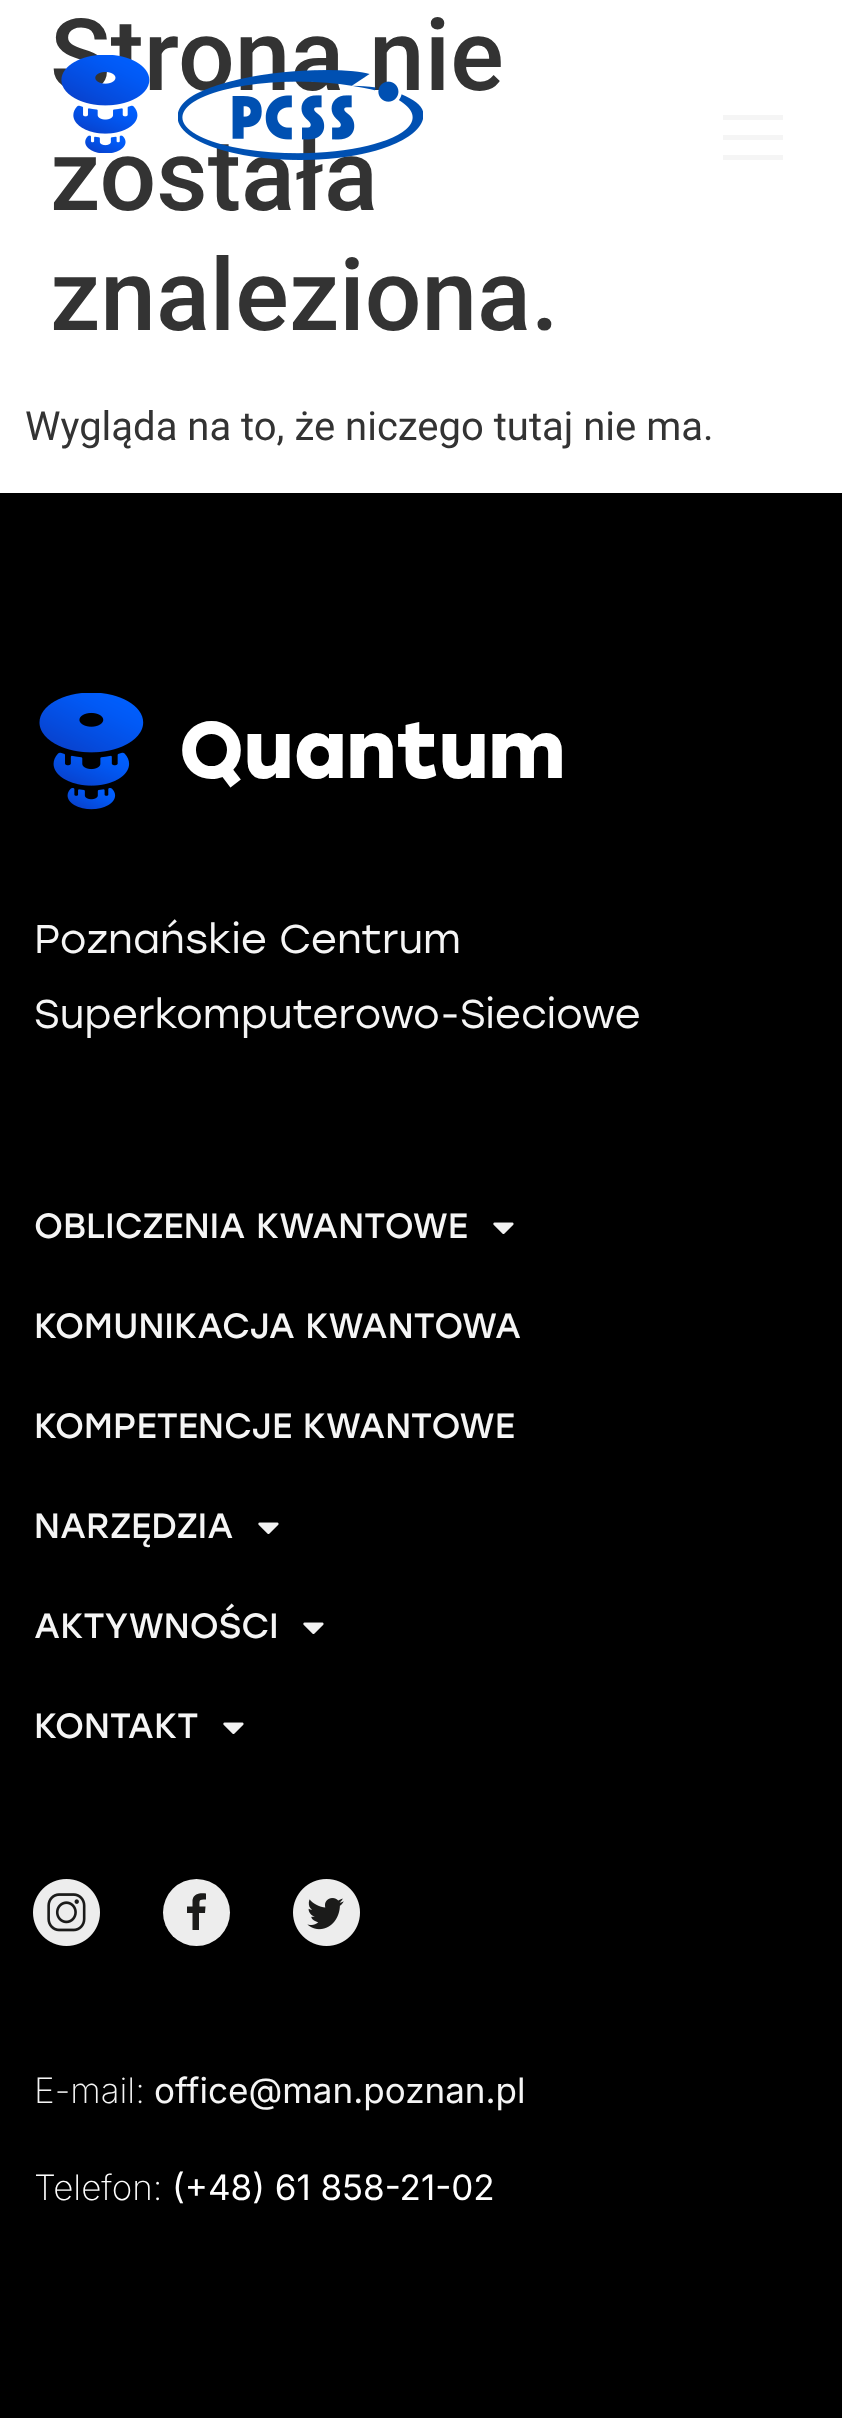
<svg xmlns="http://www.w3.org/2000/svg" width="842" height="2422">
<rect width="100%" height="100%" fill="#fff"/>
<text x="50" y="90" style="font-family:Roboto;font-size:100px;font-weight:500;fill:#333">Strona nie</text>
<text x="50" y="210" style="font-family:Roboto;font-size:100px;font-weight:500;fill:#333">została</text>
<text x="50" y="330" style="font-family:Roboto;font-size:100px;font-weight:500;fill:#333">znaleziona.</text>
<text x="25" y="440" style="font-family:Roboto;font-size:40px;fill:#333">Wygląda na to, że niczego tutaj nie ma.</text>
<image x="61" y="55" width="89" height="98" href="media/1.png"/>
<image x="178" y="70" width="245" height="90" href="media/2.png"/>
<rect x="723" y="115" width="60" height="5" fill="#f5f5f5"/>
<rect x="723" y="135" width="60" height="5" fill="#f5f5f5"/>
<rect x="723" y="155" width="60" height="5" fill="#f5f5f5"/>
<rect y="493" width="842" height="1925" fill="#000"/>
<image x="39" y="693" width="105" height="117" href="media/3.png"/>
<text x="179" y="778" style="font-family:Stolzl;font-size:80px;font-weight:bold;fill:#fff">Quantum</text>
<text x="34" y="953" style="font-family:Stolzl;font-size:40px;fill:#f5f5f5">Poznańskie Centrum</text>
<text x="34" y="1028" style="font-family:Stolzl;font-size:40px;fill:#f5f5f5">Superkomputerowo-Sieciowe</text>
<text x="34" y="1238" style="font-family:'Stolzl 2';font-size:35px;fill:#f5f5f5">OBLICZENIA KWANTOWE</text>
<image x="493" y="1222" width="21" height="12" href="media/4.png"/>
<text x="34" y="1338" style="font-family:'Stolzl 2';font-size:35px;fill:#f5f5f5">KOMUNIKACJA KWANTOWA</text>
<text x="34" y="1438" style="font-family:'Stolzl 2';font-size:35px;fill:#f5f5f5">KOMPETENCJE KWANTOWE</text>
<text x="34" y="1538" style="font-family:'Stolzl 2';font-size:35px;fill:#f5f5f5">NARZĘDZIA</text>
<image x="258" y="1522" width="21" height="12" href="media/4.png"/>
<text x="34" y="1638" style="font-family:'Stolzl 2';font-size:35px;fill:#f5f5f5">AKTYWNOŚCI</text>
<image x="303" y="1622" width="21" height="12" href="media/4.png"/>
<text x="34" y="1738" style="font-family:'Stolzl 2';font-size:35px;fill:#f5f5f5">KONTAKT</text>
<image x="223" y="1722" width="21" height="12" href="media/4.png"/>
<image x="33" y="1879" width="67" height="67" href="media/5.png"/>
<circle cx="196.5" cy="1912.5" r="33.5" fill="#ededed"/>
<path d="M199 1930v-17h6l.5-6.5h-6c0-6.5-1-7 6.5-7v-6c-5.5-.5-12-.5-13.5 6.5v6.5h-5.5v6.5h5.5v17z" fill="#1b1b1a"/>
<image x="293" y="1879" width="67" height="67" href="media/6.png"/>
<text x="34" y="2103" style="font-family:Inter;font-size:35px;font-weight:200;fill:#f5f5f5">E-mail:</text>
<text x="154" y="2103" style="font-family:Inter;font-size:35px;fill:#f5f5f5">office@man.poznan.pl</text>
<text x="34" y="2200" style="font-family:Inter;font-size:35px;font-weight:200;fill:#fff">Telefon:</text>
<text x="172" y="2200" style="font-family:Inter;font-size:35px;fill:#fff">(+48) 61 858-21-02</text>
</svg>
